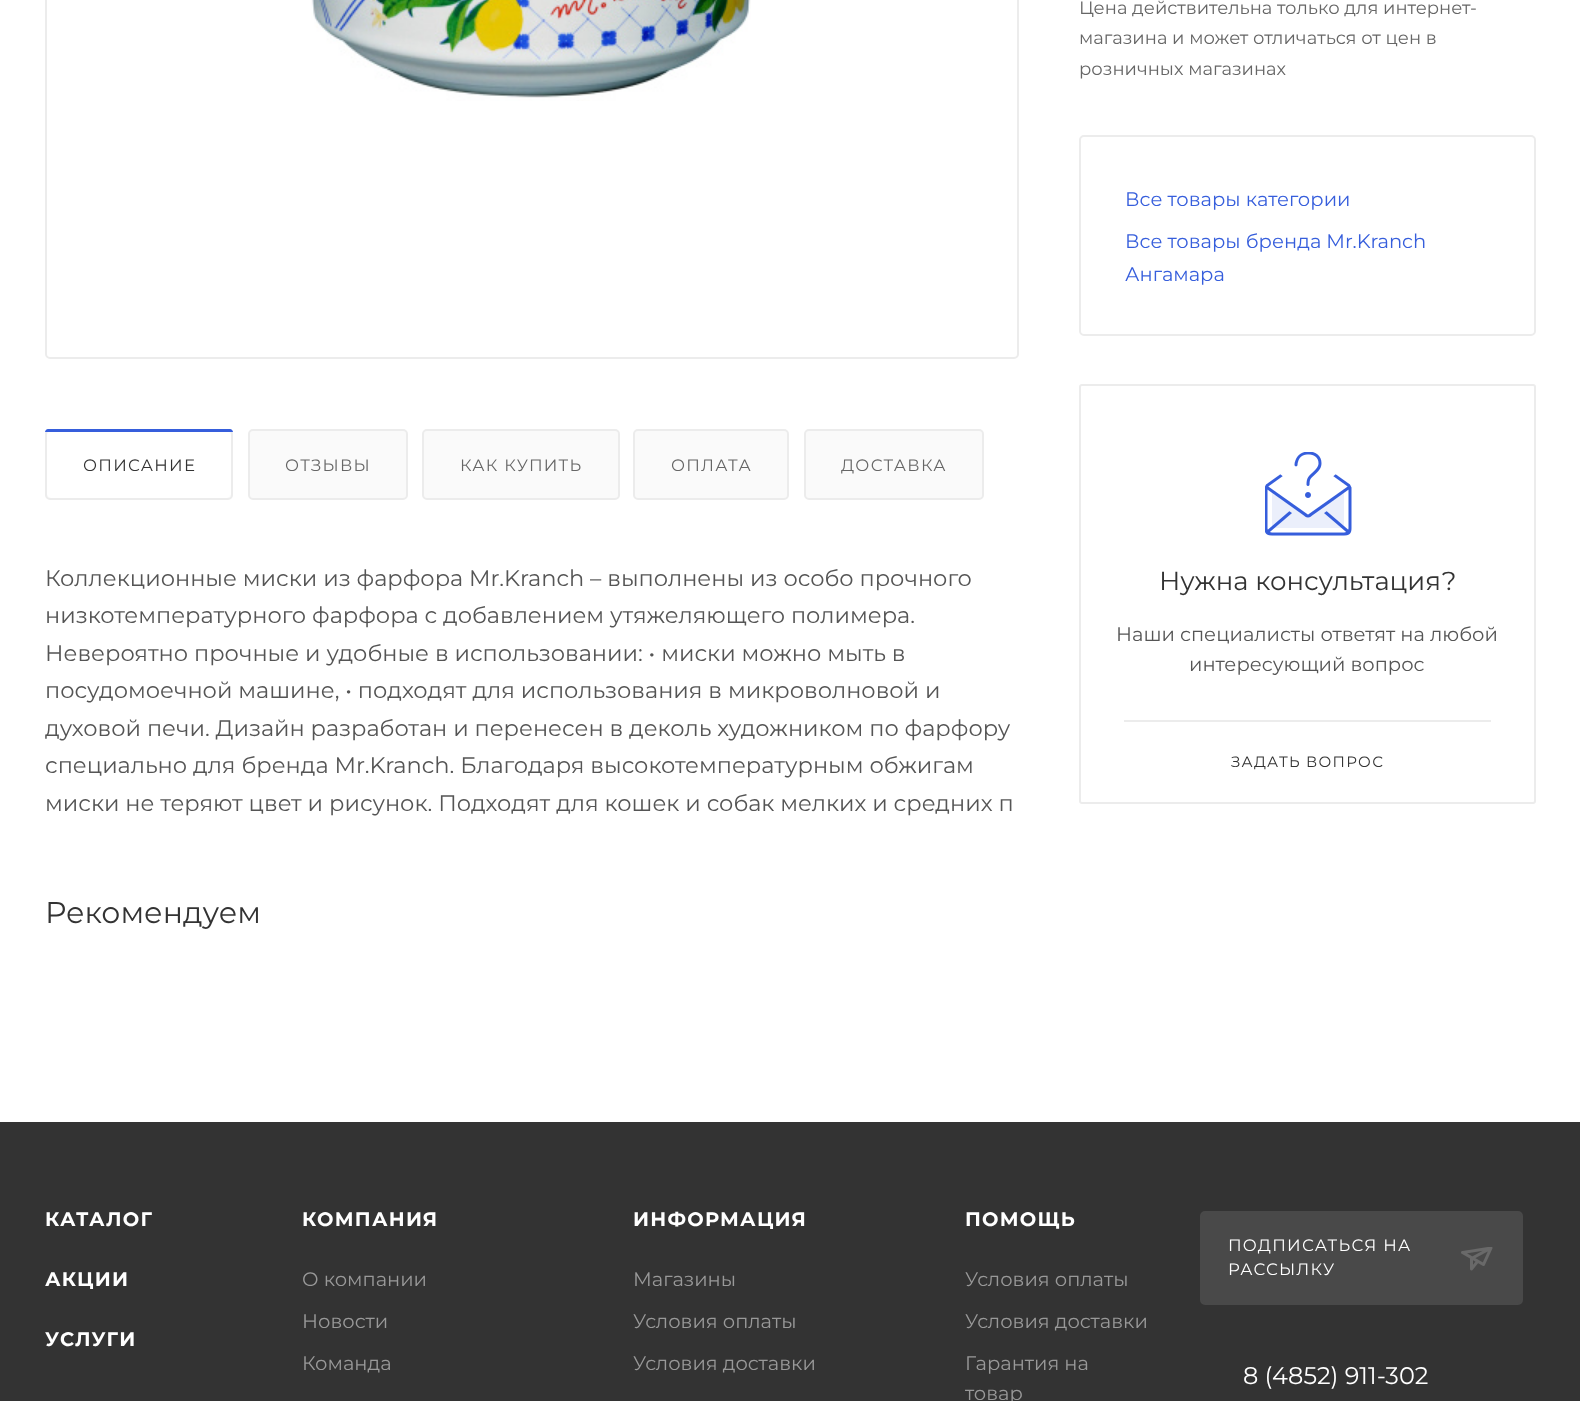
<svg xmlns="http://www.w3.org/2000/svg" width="1580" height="1401">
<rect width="100%" height="100%" fill="#fff"/>
<rect x="46" y="-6" width="972" height="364" rx="4" fill="none" stroke="#ececec" stroke-width="2"/>
<image x="311" y="0" width="440" height="101" href="media/1.png"/>
<rect x="46" y="430" width="186" height="69" rx="4" fill="#fafafa" stroke="#ececec" stroke-width="2"/>
<rect x="47" y="431" width="184" height="67" rx="5" fill="#fff"/>
<path d="M48 429h182c1.5 0 3 1.5 3 3h-188c0-1.5 1.5-3 3-3z" fill="#365edc"/>
<text x="83" y="471" style="font-family:Montserrat;font-size:16.5px;letter-spacing:1.25px;fill:#333">ОПИСАНИЕ</text>
<rect x="249" y="430" width="158" height="69" rx="4" fill="#fafafa" stroke="#ececec" stroke-width="2"/>
<text x="285" y="471" style="font-family:Montserrat;font-size:16.5px;letter-spacing:1.25px;fill:#666">ОТЗЫВЫ</text>
<rect x="423" y="430" width="196" height="69" rx="4" fill="#fafafa" stroke="#ececec" stroke-width="2"/>
<text x="460" y="471" style="font-family:Montserrat;font-size:16.5px;letter-spacing:1.25px;fill:#666">КАК КУПИТЬ</text>
<rect x="634" y="430" width="154" height="69" rx="4" fill="#fafafa" stroke="#ececec" stroke-width="2"/>
<text x="671" y="471" style="font-family:Montserrat;font-size:16.5px;letter-spacing:1.25px;fill:#666">ОПЛАТА</text>
<rect x="805" y="430" width="178" height="69" rx="4" fill="#fafafa" stroke="#ececec" stroke-width="2"/>
<text x="841" y="471" style="font-family:Montserrat;font-size:16.5px;letter-spacing:1.25px;fill:#666">ДОСТАВКА</text>
<text x="45" y="586" style="font-family:Montserrat;font-size:22.5px;fill:#555">Коллекционные миски из фарфора Mr.Kranch – выполнены из особо прочного</text>
<text x="45" y="623" style="font-family:Montserrat;font-size:22.5px;fill:#555">низкотемпературного фарфора с добавлением утяжеляющего полимера.</text>
<text x="45" y="661" style="font-family:Montserrat;font-size:22.5px;fill:#555">Невероятно прочные и удобные в использовании: • миски можно мыть в</text>
<text x="45" y="698" style="font-family:Montserrat;font-size:22.5px;fill:#555">посудомоечной машине, • подходят для использования в микроволновой и</text>
<text x="45" y="736" style="font-family:Montserrat;font-size:22.5px;fill:#555">духовой печи. Дизайн разработан и перенесен в деколь художником по фарфору</text>
<text x="45" y="773" style="font-family:Montserrat;font-size:22.5px;fill:#555">специально для бренда Mr.Kranch. Благодаря высокотемпературным обжигам</text>
<text x="45" y="811" style="font-family:Montserrat;font-size:22.5px;fill:#555">миски не теряют цвет и рисунок. Подходят для кошек и собак мелких и средних п</text>
<text x="45" y="923" style="font-family:Montserrat;font-size:30px;fill:#333">Рекомендуем</text>
<text x="1079" y="14" style="font-family:Montserrat;font-size:18px;fill:#666">Цена действительна только для интернет-</text>
<text x="1079" y="44" style="font-family:Montserrat;font-size:18px;fill:#666">магазина и может отличаться от цен в</text>
<text x="1079" y="75" style="font-family:Montserrat;font-size:18px;fill:#666">розничных магазинах</text>
<rect x="1080" y="136" width="455" height="199" rx="4" fill="none" stroke="#ececec" stroke-width="2"/>
<text x="1125" y="206" style="font-family:Montserrat;font-size:19.5px;fill:#365edc">Все товары категории</text>
<text x="1125" y="248" style="font-family:Montserrat;font-size:19.5px;fill:#365edc">Все товары бренда Mr.Kranch</text>
<text x="1125" y="281" style="font-family:Montserrat;font-size:19.5px;fill:#365edc">Ангамара</text>
<rect x="1080" y="385" width="455" height="418" rx="2" fill="none" stroke="#ececec" stroke-width="2"/>
<image x="1265" y="452" width="87" height="84" href="media/2.png"/>
<text x="1159" y="590" style="font-family:Montserrat;font-size:26px;fill:#333">Нужна консультация?</text>
<text x="1116" y="641" style="font-family:Montserrat;font-size:19.5px;fill:#555">Наши специалисты ответят на любой</text>
<text x="1189" y="671" style="font-family:Montserrat;font-size:19.5px;fill:#555">интересующий вопрос</text>
<rect x="1124" y="720" width="367" height="2" fill="#ececec"/>
<text x="1231" y="767" style="font-family:Montserrat;font-size:15px;letter-spacing:1.25px;fill:#333">ЗАДАТЬ ВОПРОС</text>
<rect y="1122" width="1580" height="279" fill="#333"/>
<text x="45" y="1226" style="font-family:Montserrat;font-size:19.5px;font-weight:bold;letter-spacing:1.25px;fill:#fff">КАТАЛОГ</text>
<text x="45" y="1286" style="font-family:Montserrat;font-size:19.5px;font-weight:bold;letter-spacing:1.25px;fill:#fff">АКЦИИ</text>
<text x="45" y="1346" style="font-family:Montserrat;font-size:19.5px;font-weight:bold;letter-spacing:1.25px;fill:#fff">УСЛУГИ</text>
<text x="302" y="1226" style="font-family:Montserrat;font-size:19.5px;font-weight:bold;letter-spacing:1.25px;fill:#fff">КОМПАНИЯ</text>
<text x="302" y="1286" style="font-family:Montserrat;font-size:19.5px;fill:#999">О компании</text>
<text x="302" y="1328" style="font-family:Montserrat;font-size:19.5px;fill:#999">Новости</text>
<text x="302" y="1370" style="font-family:Montserrat;font-size:19.5px;fill:#999">Команда</text>
<text x="633" y="1226" style="font-family:Montserrat;font-size:19.5px;font-weight:bold;letter-spacing:1.25px;fill:#fff">ИНФОРМАЦИЯ</text>
<text x="633" y="1286" style="font-family:Montserrat;font-size:19.5px;fill:#999">Магазины</text>
<text x="633" y="1328" style="font-family:Montserrat;font-size:19.5px;fill:#999">Условия оплаты</text>
<text x="633" y="1370" style="font-family:Montserrat;font-size:19.5px;fill:#999">Условия доставки</text>
<text x="965" y="1226" style="font-family:Montserrat;font-size:19.5px;font-weight:bold;letter-spacing:1.25px;fill:#fff">ПОМОЩЬ</text>
<text x="965" y="1286" style="font-family:Montserrat;font-size:19.5px;fill:#999">Условия оплаты</text>
<text x="965" y="1328" style="font-family:Montserrat;font-size:19.5px;fill:#999">Условия доставки</text>
<text x="965" y="1370" style="font-family:Montserrat;font-size:19.5px;fill:#999">Гарантия на</text>
<text x="965" y="1400" style="font-family:Montserrat;font-size:19.5px;fill:#999">товар</text>
<rect x="1201" y="1212" width="321" height="92" rx="4" fill="#494949" stroke="#494949" stroke-width="2"/>
<text x="1228" y="1251" style="font-family:Montserrat;font-size:16.5px;letter-spacing:1.25px;fill:#fff">ПОДПИСАТЬСЯ НА</text>
<image x="1461" y="1247" width="32" height="24" href="media/3.png"/>
<text x="1228" y="1275" style="font-family:Montserrat;font-size:16.5px;letter-spacing:1.25px;fill:#fff">РАССЫЛКУ</text>
<text x="1243" y="1384" style="font-family:Montserrat;font-size:24px;fill:#fff">8 (4852) 911-302</text>
</svg>
